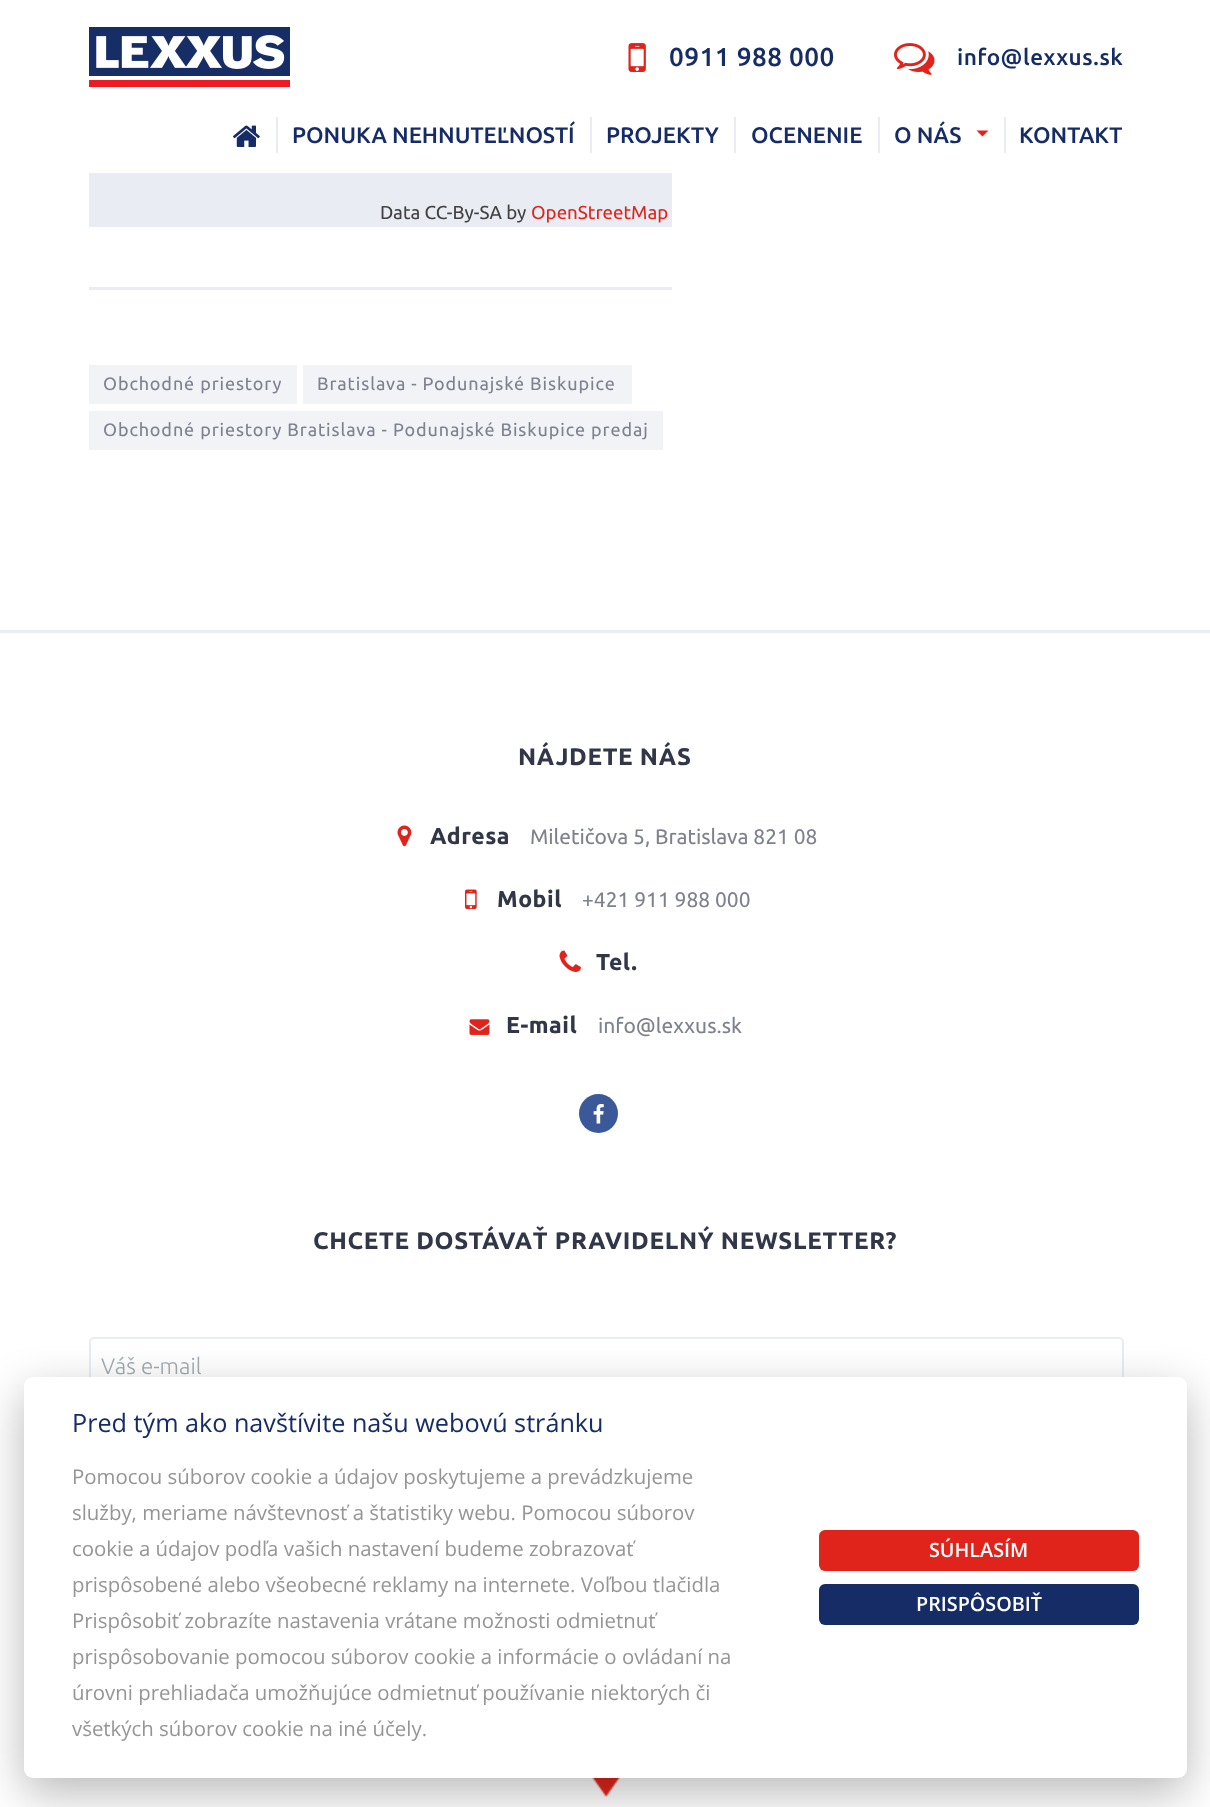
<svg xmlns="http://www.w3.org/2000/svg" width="1210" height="1807">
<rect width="100%" height="100%" fill="#fff"/>
<image x="89" y="27" width="201" height="60" href="media/1.png"/>
<image x="628" y="43" width="18" height="29" href="media/2.png"/>
<text x="669" y="66" style="font-family:Ubuntu;font-size:26px;font-weight:500;letter-spacing:0.5px;fill:#152c67">0911 988 000</text>
<image x="894" y="43" width="41" height="32" href="media/3.png"/>
<text x="957" y="65" style="font-family:Ubuntu;font-size:22.5px;font-weight:500;letter-spacing:0.5px;fill:#152c67">info@lexxus.sk</text>
<image x="233" y="125" width="27" height="22" href="media/4.png"/>
<rect x="276" y="117" width="2" height="36" fill="#e9edf3"/>
<text x="292" y="143" style="font-family:Ubuntu;font-size:22.5px;font-weight:500;fill:#152c67">PONUKA NEHNUTEĽNOSTÍ</text>
<rect x="590" y="117" width="2" height="36" fill="#e9edf3"/>
<text x="606" y="143" style="font-family:Ubuntu;font-size:22.5px;font-weight:500;fill:#152c67">PROJEKTY</text>
<rect x="734" y="117" width="2" height="36" fill="#e9edf3"/>
<text x="751" y="143" style="font-family:Ubuntu;font-size:22.5px;font-weight:500;fill:#152c67">OCENENIE</text>
<rect x="878" y="117" width="2" height="36" fill="#e9edf3"/>
<text x="894" y="143" style="font-family:Ubuntu;font-size:22.5px;font-weight:500;fill:#152c67">O NÁS</text>
<path d="M976.5 130.5h12l-6 6z" fill="#e1241b"/>
<rect x="1004" y="117" width="2" height="36" fill="#e9edf3"/>
<text x="1019" y="143" style="font-family:Ubuntu;font-size:22.5px;font-weight:500;fill:#152c67">KONTAKT</text>
<rect x="89" y="173" width="583" height="54" fill="#e9edf3"/>
<text x="380" y="219" style="font-family:Ubuntu;font-size:18.75px;fill:#414141">Data CC-By-SA by</text>
<text x="531" y="219" style="font-family:Ubuntu;font-size:18.75px;fill:#e1241b">OpenStreetMap</text>
<rect x="89" y="287" width="583" height="3" fill="#e9edf3"/>
<rect x="89" y="365" width="208" height="39" fill="#f1f3f7"/>
<text x="103" y="390" style="font-family:Ubuntu;font-size:18px;letter-spacing:0.9px;fill:#7e828e">Obchodné priestory</text>
<rect x="303" y="365" width="329" height="39" fill="#f1f3f7"/>
<text x="317" y="390" style="font-family:Ubuntu;font-size:18px;letter-spacing:0.9px;fill:#7e828e">Bratislava - Podunajské Biskupice</text>
<rect x="89" y="411" width="574" height="39" fill="#f1f3f7"/>
<text x="103" y="436" style="font-family:Ubuntu;font-size:18px;letter-spacing:0.9px;fill:#7e828e">Obchodné priestory Bratislava - Podunajské Biskupice predaj</text>
<rect y="630" width="1210" height="3" fill="#e9edf3"/>
<text x="518" y="765" style="font-family:Ubuntu;font-size:24px;font-weight:bold;letter-spacing:0.7px;fill:#313748">NÁJDETE NÁS</text>
<image x="397" y="825" width="15" height="22" href="media/5.png"/>
<text x="430" y="844" style="font-family:Ubuntu;font-size:23px;font-weight:bold;letter-spacing:0.5px;fill:#313748">Adresa</text>
<text x="530" y="844" style="font-family:Ubuntu;font-size:21px;fill:#7e828e">Miletičova 5, Bratislava 821 08</text>
<image x="465" y="889" width="12" height="20" href="media/6.png"/>
<text x="497" y="907" style="font-family:Ubuntu;font-size:23px;font-weight:bold;letter-spacing:0.5px;fill:#313748">Mobil</text>
<text x="582" y="907" style="font-family:Ubuntu;font-size:21px;fill:#7e828e">+421 911 988 000</text>
<image x="559" y="950" width="22" height="22" href="media/7.png"/>
<text x="596" y="970" style="font-family:Ubuntu;font-size:23px;font-weight:bold;letter-spacing:0.5px;fill:#313748">Tel.</text>
<image x="469" y="1019" width="21" height="16" href="media/8.png"/>
<text x="506" y="1033" style="font-family:Ubuntu;font-size:23px;font-weight:bold;letter-spacing:0.5px;fill:#313748">E-mail</text>
<text x="598" y="1033" style="font-family:Ubuntu;font-size:21px;fill:#7e828e">info@lexxus.sk</text>
<circle cx="598.5" cy="1113.5" r="19.5" fill="#3b5998"/>
<image x="593" y="1104" width="11" height="20" href="media/9.png"/>
<text x="313" y="1249" style="font-family:Ubuntu;font-size:24px;font-weight:bold;letter-spacing:0.7px;fill:#313748">CHCETE DOSTÁVAŤ PRAVIDELNÝ NEWSLETTER?</text>
<rect x="90" y="1338" width="1033" height="58" rx="4" fill="none" stroke="#e9edf3" stroke-width="2"/>
<text x="101" y="1374" style="font-family:Ubuntu;font-size:22.5px;font-weight:300;fill:#a2acb3">Váš e-mail</text>
<image x="592" y="1778" width="28" height="19" href="media/10.png"/>
<rect x="24" y="1392" width="1163" height="401" rx="9" fill="#02020347" filter="blur(22.5px)"/>
<rect x="24" y="1377" width="1163" height="401" rx="9" fill="#fff"/>
<text x="72" y="1432" style="font-family:Open Sans;font-size:25.2px;fill:#152c67">Pred tým ako navštívite našu webovú stránku</text>
<text x="72" y="1484" style="font-family:Open Sans;font-size:20.4px;fill:#959595">Pomocou súborov cookie a údajov poskytujeme a prevádzkujeme</text>
<text x="72" y="1520" style="font-family:Open Sans;font-size:20.4px;fill:#959595">služby, meriame návštevnosť a štatistiky webu. Pomocou súborov</text>
<text x="72" y="1556" style="font-family:Open Sans;font-size:20.4px;fill:#959595">cookie a údajov podľa vašich nastavení budeme zobrazovať</text>
<text x="72" y="1592" style="font-family:Open Sans;font-size:20.4px;fill:#959595">prispôsobené alebo všeobecné reklamy na internete. Voľbou tlačidla</text>
<text x="72" y="1628" style="font-family:Open Sans;font-size:20.4px;fill:#959595">Prispôsobiť zobrazíte nastavenia vrátane možnosti odmietnuť</text>
<text x="72" y="1664" style="font-family:Open Sans;font-size:20.4px;fill:#959595">prispôsobovanie pomocou súborov cookie a informácie o ovládaní na</text>
<text x="72" y="1700" style="font-family:Open Sans;font-size:20.4px;fill:#959595">úrovni prehliadača umožňujúce odmietnuť používanie niektorých či</text>
<text x="72" y="1736" style="font-family:Open Sans;font-size:20.4px;fill:#959595">všetkých súborov cookie na iné účely.</text>
<rect x="819" y="1530" width="320" height="41" rx="6" fill="#e1241b"/>
<text x="929" y="1557" style="font-family:Open Sans;font-size:19.75px;font-weight:600;fill:#fff">SÚHLASÍM</text>
<rect x="819" y="1584" width="320" height="41" rx="6" fill="#152c67"/>
<text x="916" y="1611" style="font-family:Open Sans;font-size:19.75px;font-weight:600;fill:#fff">PRISPÔSOBIŤ</text>
</svg>
